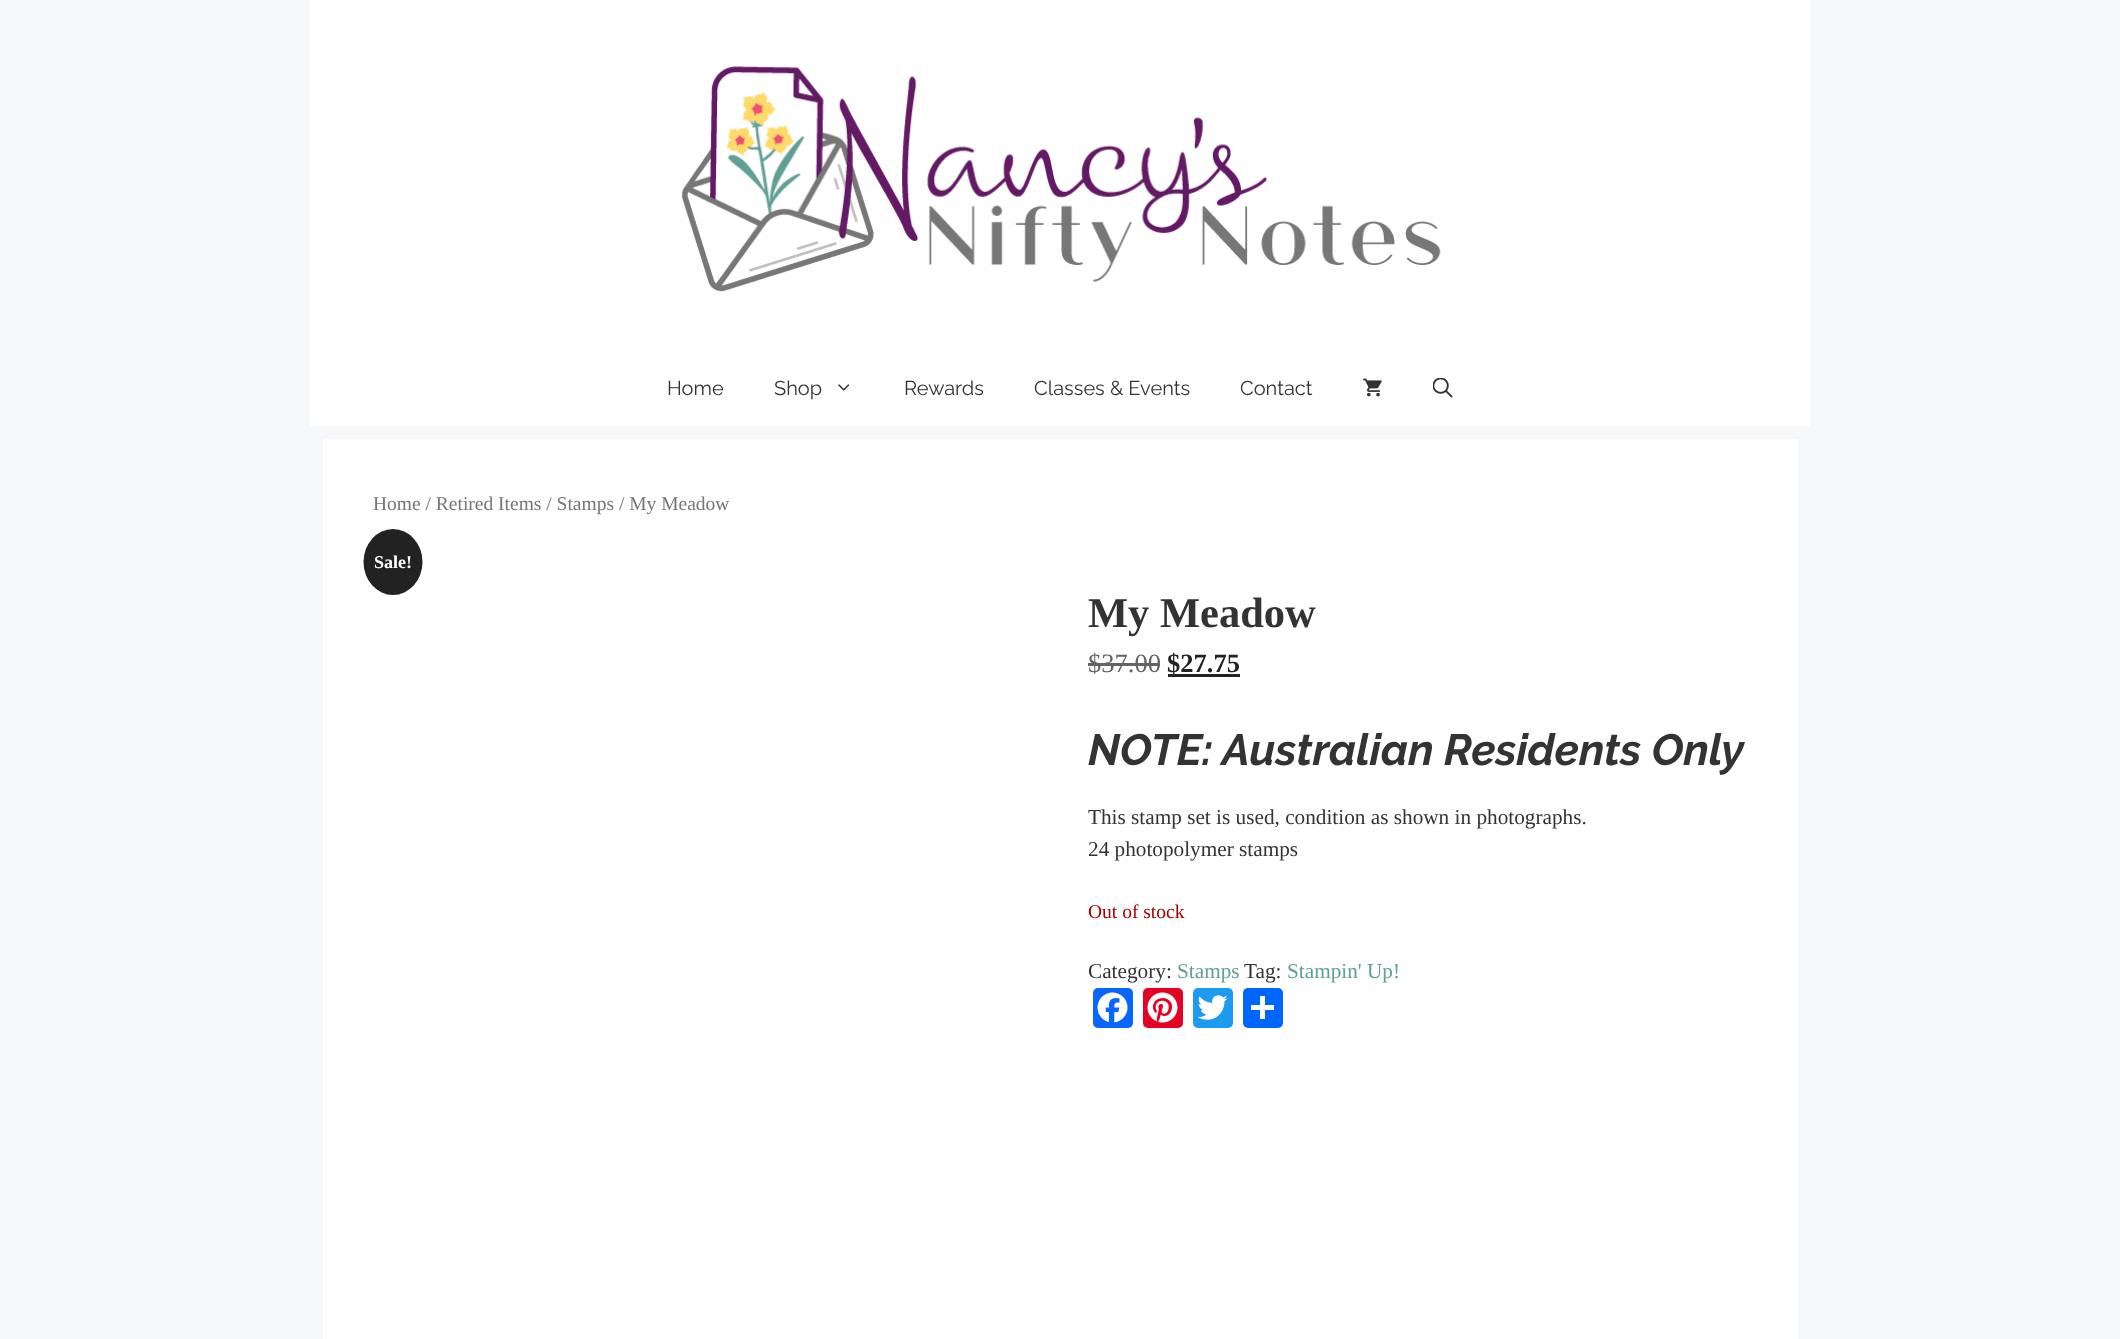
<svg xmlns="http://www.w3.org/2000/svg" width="2120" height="1339">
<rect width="100%" height="100%" fill="#f7f8f9"/>
<rect x="310" width="1500" height="426" fill="#fff"/>
<image x="681" y="66" width="760" height="226" href="media/1.png"/>
<text x="667" y="395" style="font-family:Raleway;font-size:20px;fill:#333">Home</text>
<text x="774" y="395" style="font-family:Raleway;font-size:20px;fill:#333">Shop</text>
<image x="838" y="384" width="12" height="7" href="media/2.png"/>
<text x="904" y="395" style="font-family:Raleway;font-size:20px;fill:#333">Rewards</text>
<text x="1034" y="395" style="font-family:Raleway;font-size:20px;fill:#333">Classes &amp; Events</text>
<text x="1240" y="395" style="font-family:Raleway;font-size:20px;fill:#333">Contact</text>
<image x="1363" y="378" width="19" height="19" href="media/3.png"/>
<image x="1433" y="378" width="20" height="20" href="media/4.png"/>
<rect x="323" y="439" width="1475" height="900" fill="#fff"/>
<text x="373" y="510" style="font-family:Liberation Serif;font-size:19.5px;fill:#767676">Home / Retired Items / Stamps / My Meadow</text>
<ellipse cx="393" cy="562" rx="29.5" ry="33" fill="#222"/>
<text x="374" y="568" style="font-family:Liberation Serif;font-size:18px;font-weight:bold;fill:#fff">Sale!</text>
<text x="1088" y="627" style="font-family:Liberation Serif;font-size:42.5px;font-weight:bold;fill:#333">My Meadow</text>
<text x="1088" y="672" style="font-family:Liberation Serif;font-size:26.5px;fill:#646464">$37.00</text>
<rect x="1088" y="663" width="72" height="3" fill="#646464"/>
<text x="1167" y="672" style="font-family:Liberation Serif;font-size:26.5px;font-weight:bold;fill:#222">$27.75</text>
<rect x="1168" y="674" width="72" height="3" fill="#222"/>
<text x="1088" y="765" style="font-family:Raleway;font-size:43.75px;font-weight:bold;font-style:italic;fill:#333">NOTE: Australian Residents Only</text>
<text x="1088" y="824" style="font-family:Liberation Serif;font-size:21.25px;fill:#333">This stamp set is used, condition as shown in photographs.</text>
<text x="1088" y="856" style="font-family:Liberation Serif;font-size:21.25px;fill:#333">24 photopolymer stamps</text>
<text x="1088" y="918" style="font-family:Liberation Serif;font-size:19.5px;fill:#a00">Out of stock</text>
<text x="1088" y="978" style="font-family:Liberation Serif;font-size:21.25px;fill:#333">Category:</text>
<text x="1177" y="978" style="font-family:Liberation Serif;font-size:21.25px;fill:#609f94">Stamps</text>
<text x="1244" y="978" style="font-family:Liberation Serif;font-size:21.25px;fill:#333">Tag:</text>
<text x="1287" y="978" style="font-family:Liberation Serif;font-size:21.25px;fill:#609f94">Stampin' Up!</text>
<rect x="1093" y="988" width="40" height="40" rx="5" fill="#0866ff"/>
<image x="1097" y="992" width="31" height="31" href="media/5.png"/>
<rect x="1143" y="988" width="40" height="40" rx="5" fill="#e60023"/>
<image x="1147" y="992" width="31" height="31" href="media/6.png"/>
<rect x="1193" y="988" width="40" height="40" rx="5" fill="#1d9bf0"/>
<image x="1197" y="995" width="31" height="25" href="media/7.png"/>
<rect x="1243" y="988" width="40" height="40" rx="5" fill="#0166ff"/>
<rect x="1260" y="996" width="5" height="23" fill="#fff"/>
<rect x="1251" y="1005" width="23" height="5" fill="#fff"/>
</svg>
